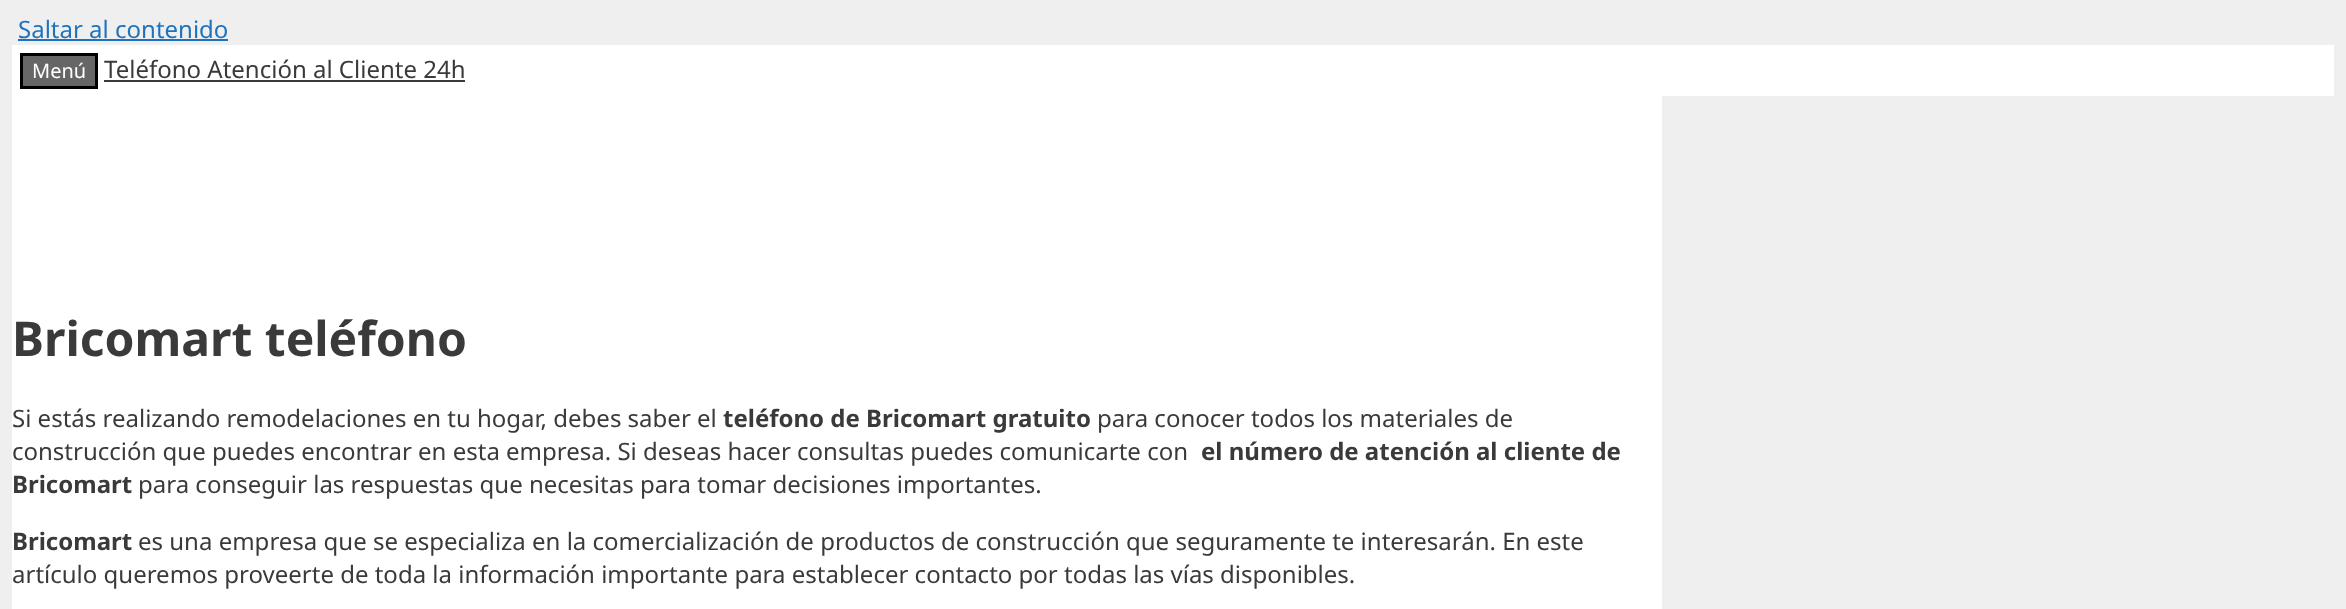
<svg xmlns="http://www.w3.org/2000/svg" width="2346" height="609">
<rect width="100%" height="100%" fill="#efefef"/>
<text x="18" y="38" style="font-family:Noto Sans;font-size:24px;fill:#1e73be">Saltar al contenido</text>
<rect x="18" y="39" width="210" height="2" fill="#1e73be"/>
<rect x="12" y="45" width="2322" height="51" fill="#fff"/>
<rect x="21.5" y="54.5" width="75" height="33" fill="#666" stroke="#000" stroke-width="3"/>
<text x="32" y="78" style="font-family:Noto Sans;font-size:20px;fill:#fff">Menú</text>
<text x="104" y="78" style="font-family:Noto Sans;font-size:24px;fill:#3a3a3a">Teléfono Atención al Cliente 24h</text>
<rect x="104" y="80" width="361" height="2" fill="#3a3a3a"/>
<rect x="12" y="96" width="1650" height="513" fill="#fff"/>
<text x="12" y="356" style="font-family:Noto Sans;font-size:48px;font-weight:bold;fill:#3a3a3a">Bricomart teléfono</text>
<text x="12" y="427" style="font-family:Noto Sans;font-size:24px;fill:#3a3a3a">Si estás realizando remodelaciones en tu hogar, debes saber el</text>
<text x="723" y="427" style="font-family:Noto Sans;font-size:24px;font-weight:bold;fill:#3a3a3a">teléfono de Bricomart gratuito</text>
<text x="1097" y="427" style="font-family:Noto Sans;font-size:24px;fill:#3a3a3a">para conocer todos los materiales de</text>
<text x="12" y="460" style="font-family:Noto Sans;font-size:24px;fill:#3a3a3a">construcción que puedes encontrar en esta empresa. Si deseas hacer consultas puedes comunicarte con</text>
<text x="1201" y="460" style="font-family:Noto Sans;font-size:24px;font-weight:bold;fill:#3a3a3a">el número de atención al cliente de</text>
<text x="12" y="493" style="font-family:Noto Sans;font-size:24px;font-weight:bold;fill:#3a3a3a">Bricomart</text>
<text x="138" y="493" style="font-family:Noto Sans;font-size:24px;fill:#3a3a3a">para conseguir las respuestas que necesitas para tomar decisiones importantes.</text>
<text x="12" y="550" style="font-family:Noto Sans;font-size:24px;font-weight:bold;fill:#3a3a3a">Bricomart</text>
<text x="138" y="550" style="font-family:Noto Sans;font-size:24px;fill:#3a3a3a">es una empresa que se especializa en la comercialización de productos de construcción que seguramente te interesarán. En este</text>
<text x="12" y="583" style="font-family:Noto Sans;font-size:24px;fill:#3a3a3a">artículo queremos proveerte de toda la información importante para establecer contacto por todas las vías disponibles.</text>
</svg>
